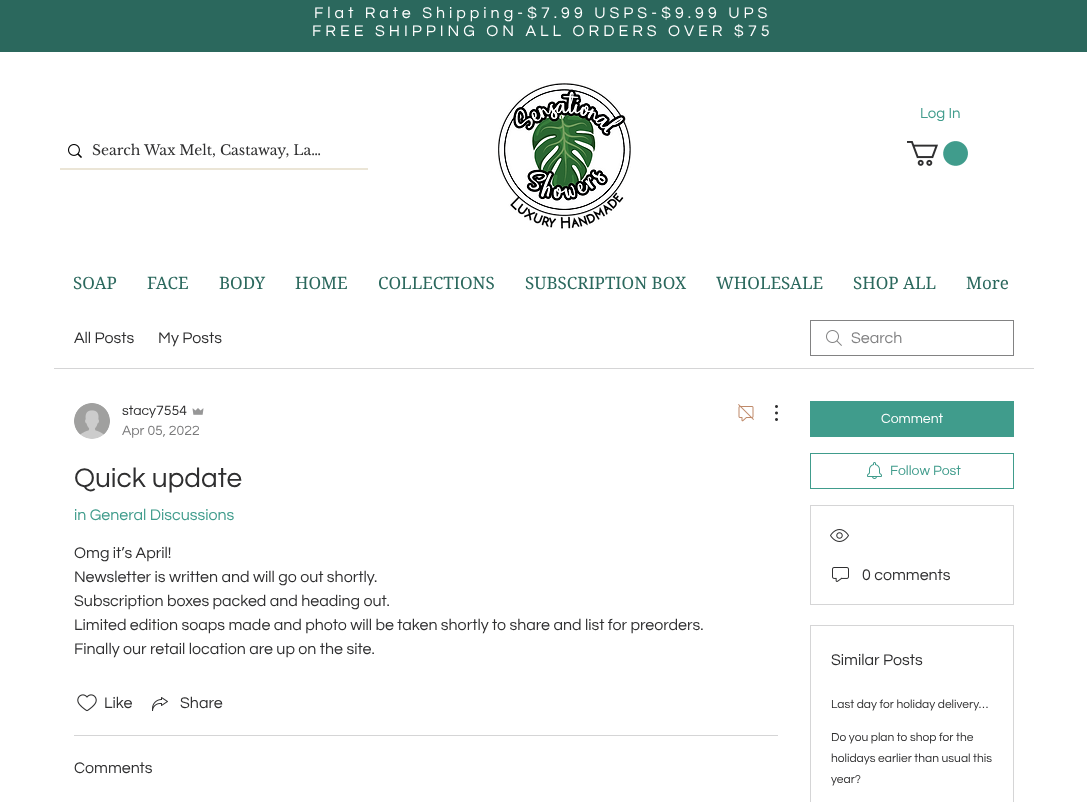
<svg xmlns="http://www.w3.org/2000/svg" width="1087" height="802">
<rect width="100%" height="100%" fill="#fff"/>
<rect width="1087" height="52" fill="#2b685d"/>
<text x="314" y="18" style="font-family:Questrial;font-size:16px;letter-spacing:4px;fill:#fff">Flat Rate Shipping-$7.99 USPS-$9.99 UPS</text>
<text x="312" y="36" style="font-family:Questrial;font-size:16px;letter-spacing:4px;fill:#fff">FREE SHIPPING ON ALL ORDERS OVER $75</text>
<image x="498" y="83" width="133" height="146" href="media/1.png"/>
<text x="920" y="118" style="font-family:Questrial;font-size:15px;fill:#409c8c">Log In</text>
<rect x="60" y="168" width="308" height="2" fill="#ebe5d6"/>
<image x="68" y="144" width="14" height="14" href="media/2.png"/>
<text x="92" y="155" style="font-family:Libre Baskerville;font-size:14px;fill:#2f2f30">Search Wax Melt, Castaway, La…</text>
<image x="907" y="141" width="61" height="25" href="media/3.png"/>
<text x="73" y="289" style="font-family:'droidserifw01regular';font-size:17px;fill:#2b685d">SOAP</text>
<text x="147" y="289" style="font-family:'droidserifw01regular';font-size:17px;fill:#2b685d">FACE</text>
<text x="219" y="289" style="font-family:'droidserifw01regular';font-size:17px;fill:#2b685d">BODY</text>
<text x="295" y="289" style="font-family:'droidserifw01regular';font-size:17px;fill:#2b685d">HOME</text>
<text x="378" y="289" style="font-family:'droidserifw01regular';font-size:17px;fill:#2b685d">COLLECTIONS</text>
<text x="525" y="289" style="font-family:'droidserifw01regular';font-size:17px;fill:#2b685d">SUBSCRIPTION BOX</text>
<text x="716" y="289" style="font-family:'droidserifw01regular';font-size:17px;fill:#2b685d">WHOLESALE</text>
<text x="853" y="289" style="font-family:'droidserifw01regular';font-size:17px;fill:#2b685d">SHOP ALL</text>
<text x="966" y="289" style="font-family:'droidserifw01regular';font-size:17px;fill:#2b685d">More</text>
<rect x="54" y="368" width="980" height="1" fill="#d5d5d6"/>
<text x="74" y="343" style="font-family:Questrial;font-size:16px;fill:#2f2f30">All Posts</text>
<text x="158" y="343" style="font-family:Questrial;font-size:16px;fill:#2f2f30">My Posts</text>
<image x="826" y="330" width="16" height="16" href="media/4.png"/>
<rect x="810.5" y="320.5" width="203" height="35" fill="none" stroke="#828283"/>
<text x="851" y="343" style="font-family:Questrial;font-size:16px;fill:#828283">Search</text>
<image x="74" y="403" width="36" height="36" href="media/5.png"/>
<text x="122" y="415" style="font-family:Questrial;font-size:14px;fill:#2f2f30">stacy7554</text>
<image x="192" y="408" width="12" height="7" href="media/6.png"/>
<text x="122" y="435" style="font-family:Questrial;font-size:14px;fill:#7a7a7b">Apr 05, 2022</text>
<image x="738" y="404" width="16" height="18" href="media/7.png"/>
<image x="775" y="405" width="3" height="16" href="media/8.png"/>
<text x="74" y="487" style="font-family:Questrial;font-size:28px;fill:#2f2f30">Quick update</text>
<text x="74" y="520" style="font-family:Questrial;font-size:16px;fill:#409c8c">in General Discussions</text>
<text x="74" y="558" style="font-family:Questrial;font-size:16px;fill:#2f2f30">Omg it’s April!</text>
<text x="74" y="582" style="font-family:Questrial;font-size:16px;fill:#2f2f30">Newsletter is written and will go out shortly.</text>
<text x="74" y="606" style="font-family:Questrial;font-size:16px;fill:#2f2f30">Subscription boxes packed and heading out.</text>
<text x="74" y="630" style="font-family:Questrial;font-size:16px;fill:#2f2f30">Limited edition soaps made and photo will be taken shortly to share and list for preorders.</text>
<text x="74" y="654" style="font-family:Questrial;font-size:16px;fill:#2f2f30">Finally our retail location are up on the site.</text>
<image x="77" y="694" width="20" height="18" href="media/9.png"/>
<text x="104" y="708" style="font-family:Questrial;font-size:16px;fill:#2f2f30">Like</text>
<image x="152" y="697" width="16" height="14" href="media/10.png"/>
<text x="180" y="708" style="font-family:Questrial;font-size:16px;fill:#2f2f30">Share</text>
<rect x="74" y="735" width="704" height="1" fill="#d5d5d6"/>
<text x="74" y="773" style="font-family:Questrial;font-size:16px;fill:#2f2f30">Comments</text>
<rect x="810" y="401" width="204" height="36" fill="#409c8c"/>
<text x="881" y="423" style="font-family:Questrial;font-size:14px;fill:#fff">Comment</text>
<rect x="810.5" y="453.5" width="203" height="35" fill="none" stroke="#409c8c"/>
<image x="867" y="462" width="15" height="17" href="media/11.png"/>
<text x="890" y="475" style="font-family:Questrial;font-size:14px;fill:#409c8c">Follow Post</text>
<rect x="810.5" y="505.5" width="203" height="99" fill="none" stroke="#d5d5d6"/>
<image x="830" y="529" width="19" height="13" href="media/12.png"/>
<image x="832" y="567" width="17" height="15" href="media/13.png"/>
<text x="862" y="580" style="font-family:Questrial;font-size:16px;fill:#2f2f30">0 comments</text>
<rect x="810.5" y="625.5" width="203" height="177" fill="none" stroke="#d5d5d6"/>
<text x="831" y="665" style="font-family:Questrial;font-size:16px;fill:#2f2f30">Similar Posts</text>
<text x="831" y="708" style="font-family:Questrial;font-size:12px;fill:#2f2f30">Last day for holiday delivery…</text>
<text x="831" y="741" style="font-family:Questrial;font-size:12px;fill:#2f2f30">Do you plan to shop for the</text>
<text x="831" y="762" style="font-family:Questrial;font-size:12px;fill:#2f2f30">holidays earlier than usual this</text>
<text x="831" y="783" style="font-family:Questrial;font-size:12px;fill:#2f2f30">year?</text>
</svg>
